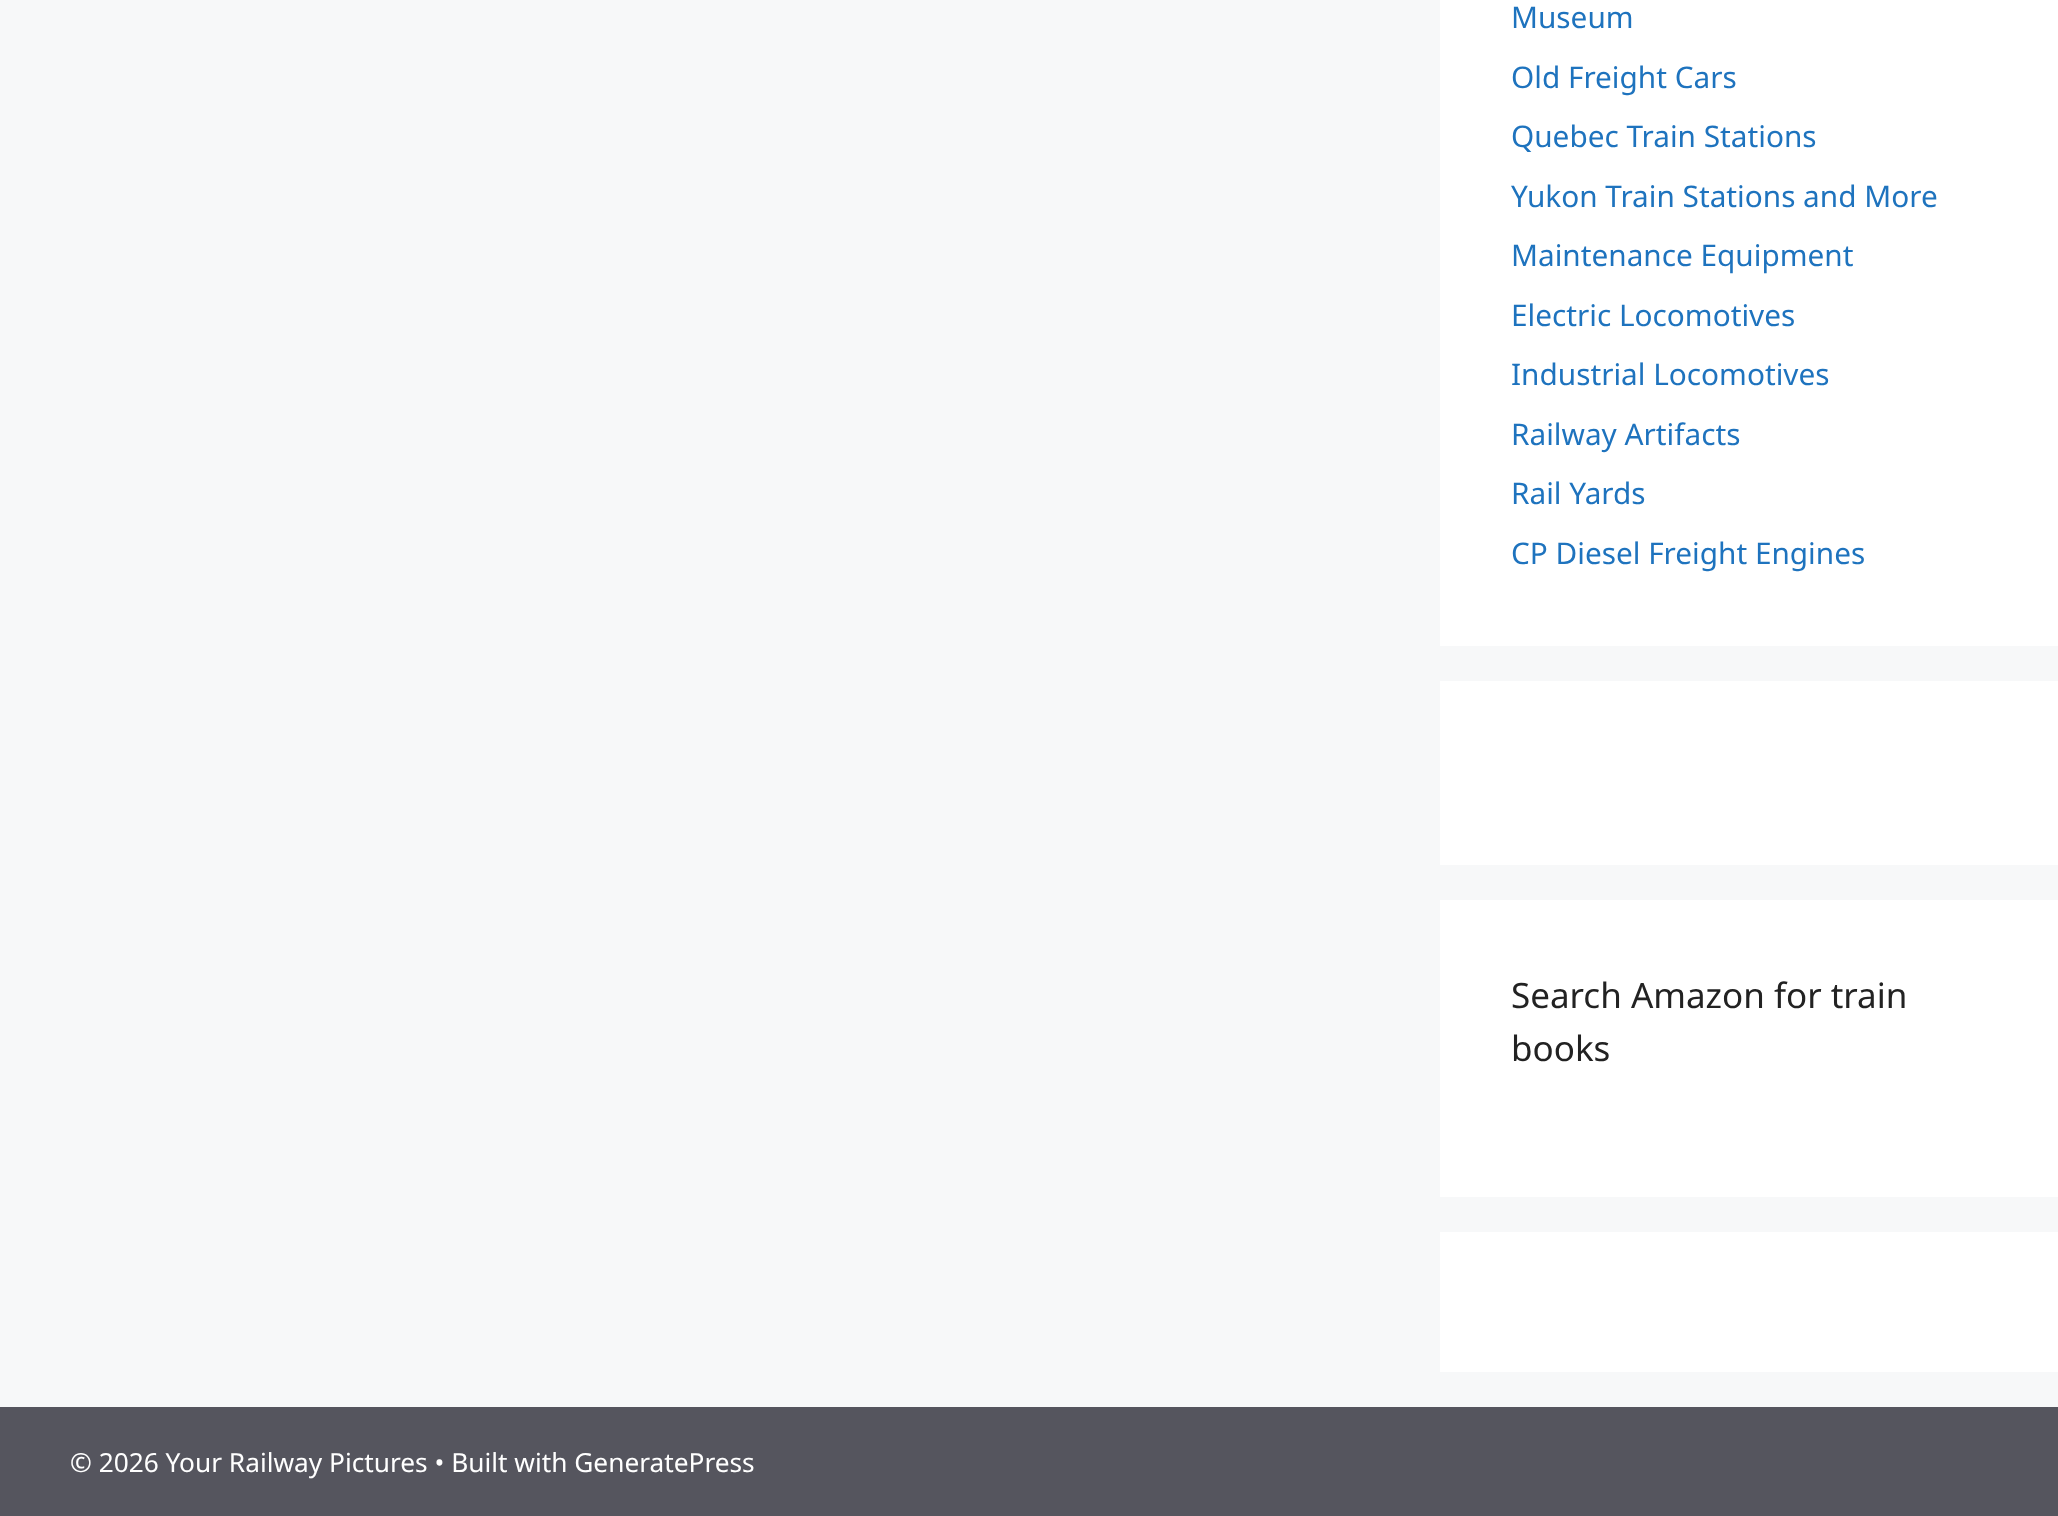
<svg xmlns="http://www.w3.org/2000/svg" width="2058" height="1516">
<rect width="100%" height="100%" fill="#f7f8f9"/>
<rect x="1440" width="618" height="646" fill="#fff"/>
<text x="1511" y="28" style="font-family:Noto Sans;font-size:29.75px;fill:#1e73be">Museum</text>
<text x="1511" y="88" style="font-family:Noto Sans;font-size:29.75px;fill:#1e73be">Old Freight Cars</text>
<text x="1511" y="147" style="font-family:Noto Sans;font-size:29.75px;fill:#1e73be">Quebec Train Stations</text>
<text x="1511" y="207" style="font-family:Noto Sans;font-size:29.75px;fill:#1e73be">Yukon Train Stations and More</text>
<text x="1511" y="266" style="font-family:Noto Sans;font-size:29.75px;fill:#1e73be">Maintenance Equipment</text>
<text x="1511" y="326" style="font-family:Noto Sans;font-size:29.75px;fill:#1e73be">Electric Locomotives</text>
<text x="1511" y="385" style="font-family:Noto Sans;font-size:29.75px;fill:#1e73be">Industrial Locomotives</text>
<text x="1511" y="445" style="font-family:Noto Sans;font-size:29.75px;fill:#1e73be">Railway Artifacts</text>
<text x="1511" y="504" style="font-family:Noto Sans;font-size:29.75px;fill:#1e73be">Rail Yards</text>
<text x="1511" y="564" style="font-family:Noto Sans;font-size:29.75px;fill:#1e73be">CP Diesel Freight Engines</text>
<rect x="1440" y="681" width="618" height="184" fill="#fff"/>
<rect x="1440" y="900" width="618" height="297" fill="#fff"/>
<text x="1511" y="1008" style="font-family:Noto Sans;font-size:35px;fill:#222">Search Amazon for train</text>
<text x="1511" y="1061" style="font-family:Noto Sans;font-size:35px;fill:#222">books</text>
<rect x="1440" y="1232" width="618" height="140" fill="#fff"/>
<rect y="1407" width="2058" height="109" fill="#55555e"/>
<text x="70" y="1472" style="font-family:Noto Sans;font-size:26.25px;fill:#fff">© 2026 Your Railway Pictures • Built with GeneratePress</text>
</svg>
